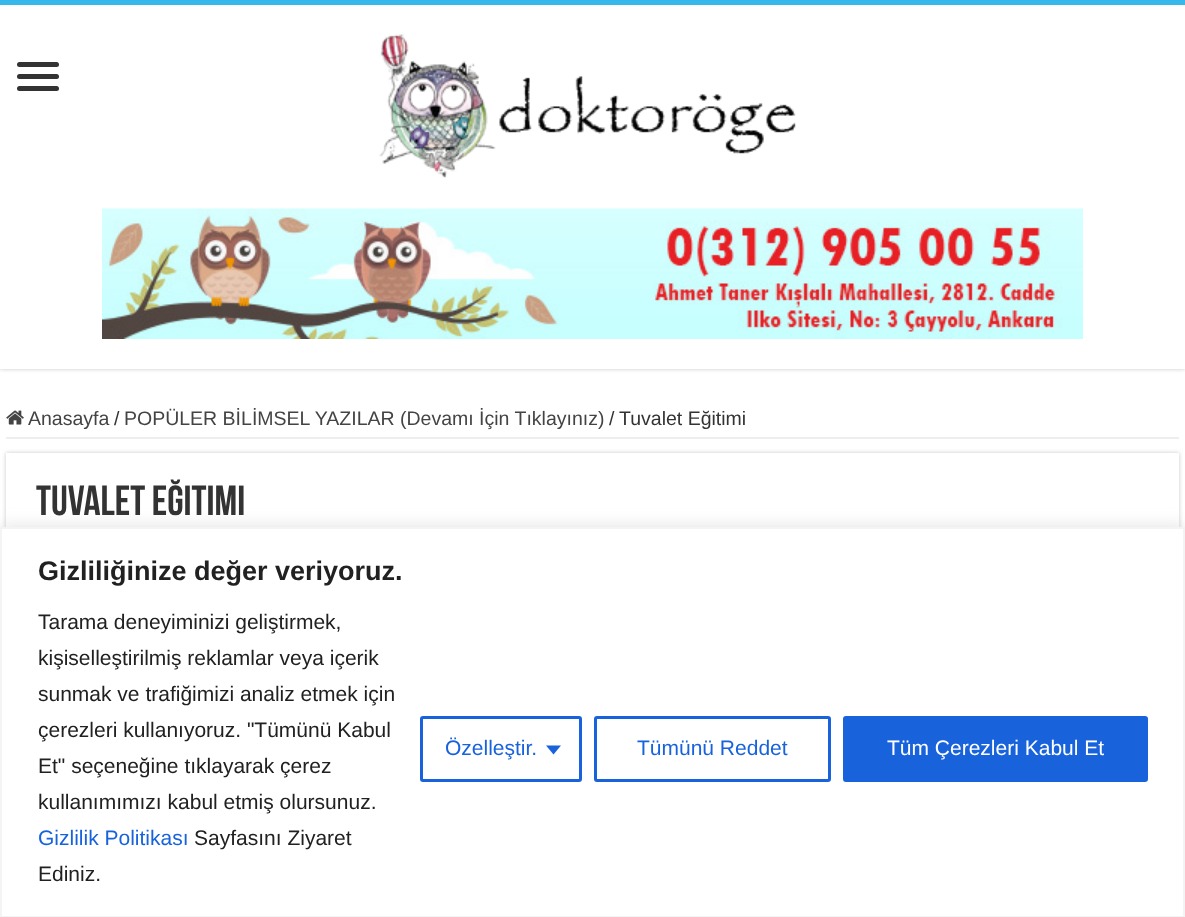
<svg xmlns="http://www.w3.org/2000/svg" width="1185" height="917">
<defs>
<clipPath id="clip1"><rect x="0" y="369" width="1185" height="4"/></clipPath>
<clipPath id="clip2"><path d="M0 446h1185v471h-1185zm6 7h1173v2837h-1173z" clip-rule="evenodd"/></clipPath>
</defs>
<rect width="100%" height="100%" fill="#fff"/>
<g clip-path="url(#clip1)">
<rect width="1185" height="369" fill="#cacaca" filter="blur(2px)"/>
</g>
<rect width="1185" height="5" fill="#37b8eb"/>
<rect x="17" y="62" width="42" height="5" rx="2.5" fill="#333"/>
<rect x="17" y="74" width="42" height="5" rx="2.5" fill="#333"/>
<rect x="17" y="86" width="42" height="5" rx="2.5" fill="#333"/>
<image x="379" y="34" width="417" height="144" href="media/1.png"/>
<image x="102" y="208" width="981" height="131" href="media/2.png"/>
<rect x="6" y="437" width="1173" height="2" fill="#eee"/>
<image x="6" y="410" width="18" height="15" href="media/3.png"/>
<text x="28" y="425" style="font-family:Liberation Sans;font-size:19.5px;fill:#444">Anasayfa</text>
<text x="114" y="425" style="font-family:Liberation Sans;font-size:19.5px;fill:#333">/</text>
<text x="124" y="425" style="font-family:Liberation Sans;font-size:19.5px;fill:#444">POPÜLER BİLİMSEL YAZILAR (Devamı İçin Tıklayınız)</text>
<text x="609" y="425" style="font-family:Liberation Sans;font-size:19.5px;fill:#333">/</text>
<text x="619" y="425" style="font-family:Liberation Sans;font-size:19.5px;fill:#333">Tuvalet Eğitimi</text>
<g clip-path="url(#clip2)">
<rect x="6" y="453" width="1173" height="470" fill="#cacaca" filter="blur(2px)"/>
</g>
<text x="36" y="515" style="font-family:Bebas Neue;font-size:42px;font-weight:bold;fill:#333">Tuvalet Eğitimi</text>
<rect y="525" width="1185" height="392" fill="#acabab4d" filter="blur(7.5px)"/>
<rect x="1" y="528" width="1183" height="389" fill="#fff" stroke="#f4f4f4" stroke-width="2"/>
<text x="38" y="580" style="font-family:Liberation Sans;font-size:27px;font-weight:bold;fill:#212121">Gizliliğinize değer veriyoruz.</text>
<text x="38" y="629" style="font-family:Liberation Sans;font-size:21px;fill:#212121">Tarama deneyiminizi geliştirmek,</text>
<text x="38" y="665" style="font-family:Liberation Sans;font-size:21px;fill:#212121">kişiselleştirilmiş reklamlar veya içerik</text>
<text x="38" y="701" style="font-family:Liberation Sans;font-size:21px;fill:#212121">sunmak ve trafiğimizi analiz etmek için</text>
<text x="38" y="737" style="font-family:Liberation Sans;font-size:21px;fill:#212121">çerezleri kullanıyoruz. "Tümünü Kabul</text>
<text x="38" y="773" style="font-family:Liberation Sans;font-size:21px;fill:#212121">Et" seçeneğine tıklayarak çerez</text>
<text x="38" y="809" style="font-family:Liberation Sans;font-size:21px;fill:#212121">kullanımımızı kabul etmiş olursunuz.</text>
<text x="38" y="845" style="font-family:Liberation Sans;font-size:21px;fill:#1863dc">Gizlilik Politikası</text>
<text x="194" y="845" style="font-family:Liberation Sans;font-size:21px;fill:#212121">Sayfasını Ziyaret</text>
<text x="38" y="881" style="font-family:Liberation Sans;font-size:21px;fill:#212121">Ediniz.</text>
<rect x="421.5" y="717.5" width="159" height="63" rx="1.5" fill="none" stroke="#1863dc" stroke-width="3"/>
<text x="445" y="755" style="font-family:Liberation Sans;font-size:21px;fill:#1863dc">Özelleştir.</text>
<path d="M546 745.5h15l-7.5 9z" fill="#1863dc"/>
<rect x="595.5" y="717.5" width="234" height="63" rx="1.5" fill="none" stroke="#1863dc" stroke-width="3"/>
<text x="637" y="755" style="font-family:Liberation Sans;font-size:21px;fill:#1863dc">Tümünü Reddet</text>
<rect x="844.5" y="717.5" width="302" height="63" rx="1.5" fill="#1863dc" stroke="#1863dc" stroke-width="3"/>
<text x="887" y="755" style="font-family:Liberation Sans;font-size:21px;fill:#fff">Tüm Çerezleri Kabul Et</text>
</svg>
